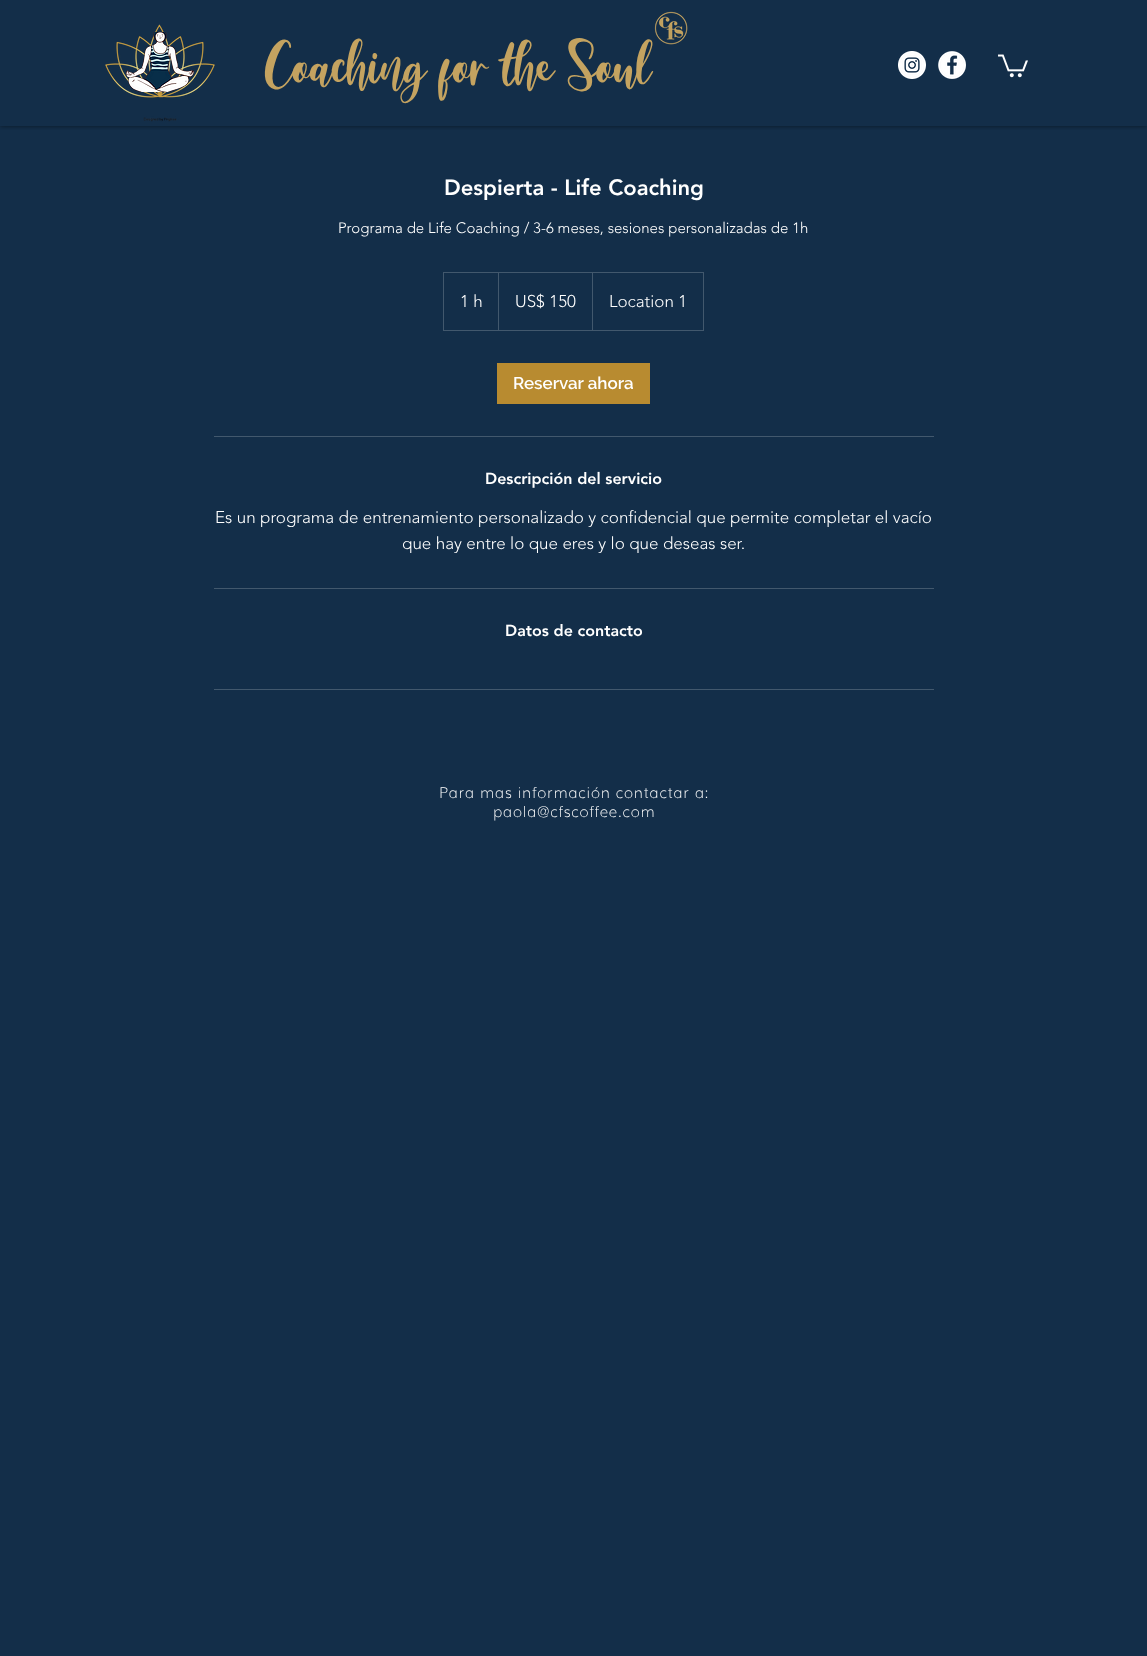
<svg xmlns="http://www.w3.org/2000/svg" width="1147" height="1656">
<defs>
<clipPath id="clip1"><rect x="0" y="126" width="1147" height="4"/></clipPath>
</defs>
<rect width="100%" height="100%" fill="#132e49"/>
<g clip-path="url(#clip1)">
<rect width="1147" height="126" fill="#00000080" filter="blur(2.5px)"/>
</g>
<image x="105" y="24" width="110" height="98" href="media/1.png"/>
<image x="126" y="32" width="68" height="60" href="media/2.png"/>
<image x="654" y="11" width="34" height="34" href="media/3.png"/>
<text x="265" y="80" style="font-family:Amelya;font-size:54px;fill:#c4a360">Coaching for the Soul</text>
<image x="898" y="51" width="28" height="28" href="media/4.png"/>
<image x="938" y="51" width="28" height="28" href="media/5.png"/>
<image x="998" y="54" width="30" height="24" href="media/6.png"/>
<text x="444" y="195" style="font-family:'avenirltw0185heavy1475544';font-size:22px;font-weight:900;fill:#fff">Despierta - Life Coaching</text>
<text x="338" y="233" style="font-family:'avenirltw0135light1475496';font-size:15px;font-weight:300;fill:#fff">Programa de Life Coaching / 3-6 meses, sesiones personalizadas de 1h</text>
<rect x="443.5" y="272.5" width="260" height="58" fill="none" stroke="#42586d"/>
<text x="460" y="307" style="font-family:'avenirltw0135light1475496';font-size:17px;font-weight:300;fill:#fff">1 h</text>
<path d="M498 330v-58l1 1v57z" fill="#42586d"/>
<text x="515" y="307" style="font-family:'avenirltw0135light1475496';font-size:17px;font-weight:300;fill:#fff">US$ 150</text>
<path d="M592 330v-58l1 1v57z" fill="#42586d"/>
<text x="609" y="307" style="font-family:'avenirltw0135light1475496';font-size:17px;font-weight:300;fill:#fff">Location 1</text>
<rect x="497" y="363" width="153" height="41" fill="#b88b30"/>
<text x="513" y="389" style="font-family:Raleway;font-size:17px;font-weight:600;fill:#fff">Reservar ahora</text>
<rect x="214" y="436" width="720" height="1" fill="#42586d"/>
<text x="485" y="484" style="font-family:'avenirltw0185heavy1475544';font-size:16px;font-weight:900;fill:#fff">Descripción del servicio</text>
<text x="215" y="523" style="font-family:'avenirltw0135light1475496';font-size:17px;font-weight:300;fill:#fff">Es un programa de entrenamiento personalizado y confidencial que permite completar el vacío</text>
<text x="402" y="549" style="font-family:'avenirltw0135light1475496';font-size:17px;font-weight:300;fill:#fff">que hay entre lo que eres y lo que deseas ser.</text>
<rect x="214" y="588" width="720" height="1" fill="#42586d"/>
<text x="505" y="636" style="font-family:'avenirltw0185heavy1475544';font-size:16px;font-weight:900;fill:#fff">Datos de contacto</text>
<rect x="214" y="689" width="720" height="1" fill="#42586d"/>
<text x="439" y="798" style="font-family:Muli;font-size:15px;font-weight:200;letter-spacing:0.75px;fill:#fff">Para mas información contactar a:</text>
<text x="493" y="817" style="font-family:Muli;font-size:15px;font-weight:200;letter-spacing:0.75px;fill:#fff">paola@cfscoffee.com</text>
</svg>
